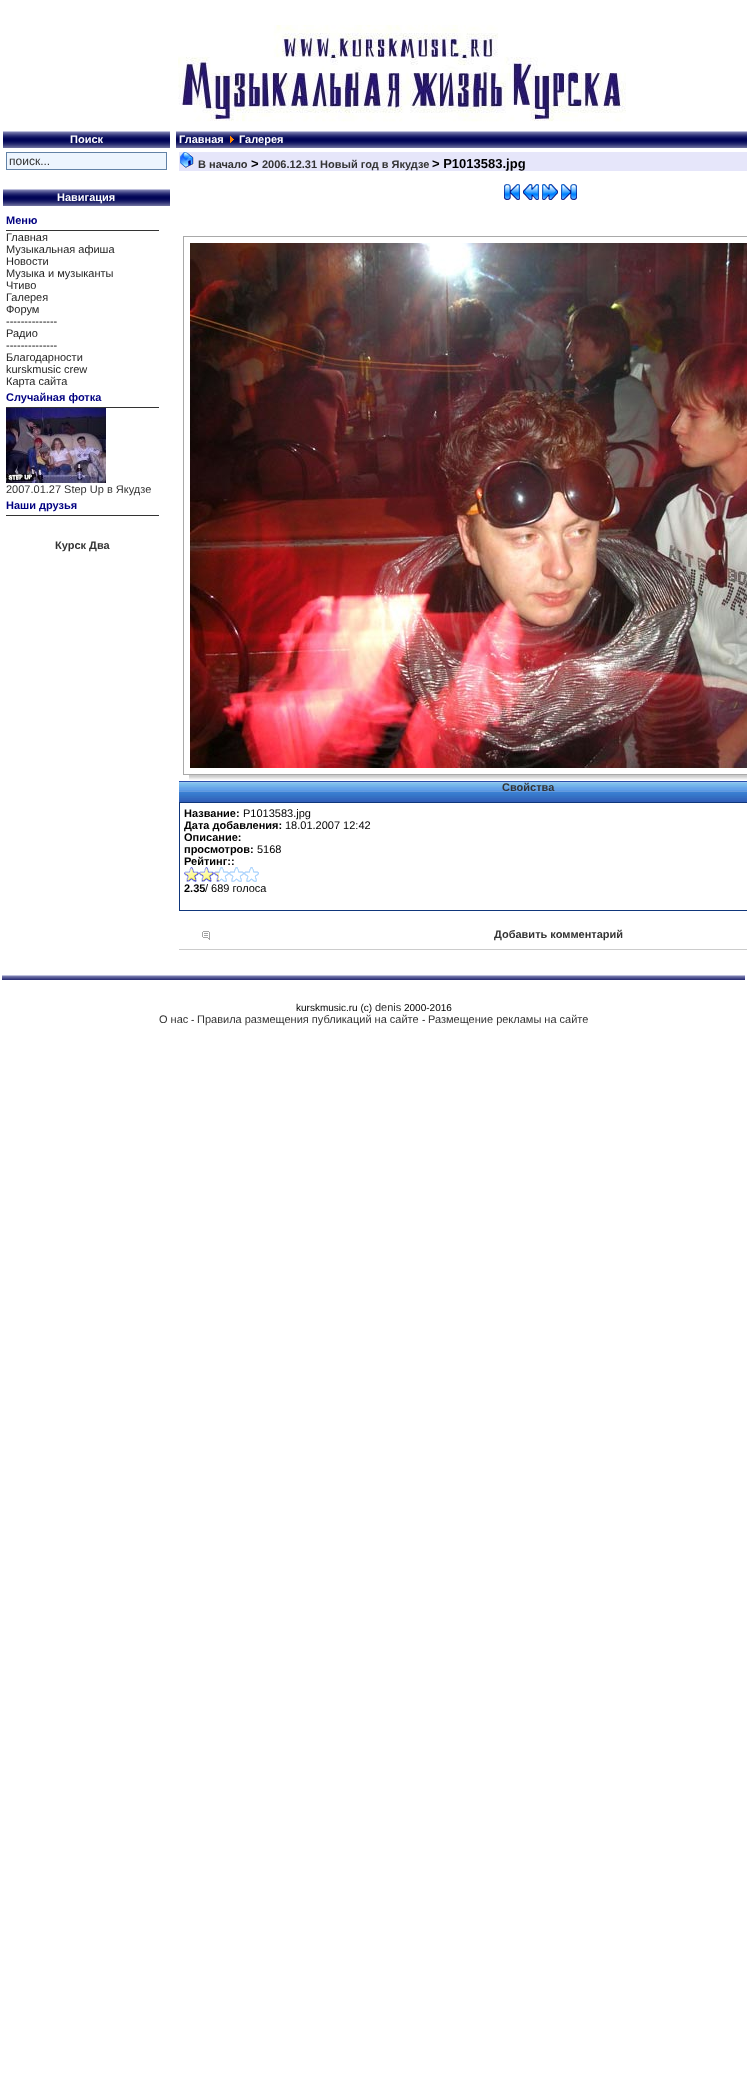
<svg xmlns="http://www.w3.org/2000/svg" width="747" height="2089">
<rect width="100%" height="100%" fill="#fff"/>
<image x="178" y="25" width="448" height="97" href="media/1.png"/>
<image x="3" y="130" width="167" height="18" href="media/2.png"/>
<text x="70" y="143" style="font-family:Liberation Sans;font-size:11px;font-weight:bold;fill:#fff">Поиск</text>
<rect x="6.5" y="152.5" width="160" height="17" fill="#edf5fe" stroke="#6282a6"/>
<text x="9" y="165" style="font-family:Liberation Sans;font-size:12px;fill:#333">поиск...</text>
<image x="3" y="188" width="167" height="18" href="media/2.png"/>
<text x="57" y="201" style="font-family:Liberation Sans;font-size:11px;font-weight:bold;fill:#fff">Навигация</text>
<rect x="6" y="230" width="153" height="1" fill="#333"/>
<text x="6" y="224" style="font-family:Liberation Sans;font-size:11px;font-weight:bold;fill:#000080">Меню</text>
<text x="6" y="241" style="font-family:Liberation Sans;font-size:11px;fill:#242424">Главная</text>
<text x="6" y="253" style="font-family:Liberation Sans;font-size:11px;fill:#242424">Музыкальная афиша</text>
<text x="6" y="265" style="font-family:Liberation Sans;font-size:11px;fill:#242424">Новости</text>
<text x="6" y="277" style="font-family:Liberation Sans;font-size:11px;fill:#242424">Музыка и музыканты</text>
<text x="6" y="289" style="font-family:Liberation Sans;font-size:11px;fill:#242424">Чтиво</text>
<text x="6" y="301" style="font-family:Liberation Sans;font-size:11px;fill:#242424">Галерея</text>
<text x="6" y="313" style="font-family:Liberation Sans;font-size:11px;fill:#242424">Форум</text>
<text x="6" y="325" style="font-family:Liberation Sans;font-size:11px;fill:#000">--------------</text>
<text x="6" y="337" style="font-family:Liberation Sans;font-size:11px;fill:#242424">Радио</text>
<text x="6" y="349" style="font-family:Liberation Sans;font-size:11px;fill:#000">--------------</text>
<text x="6" y="361" style="font-family:Liberation Sans;font-size:11px;fill:#242424">Благодарности</text>
<text x="6" y="373" style="font-family:Liberation Sans;font-size:11px;fill:#242424">kurskmusic crew</text>
<text x="6" y="385" style="font-family:Liberation Sans;font-size:11px;fill:#242424">Карта сайта</text>
<rect x="6" y="407" width="153" height="1" fill="#333"/>
<text x="6" y="401" style="font-family:Liberation Sans;font-size:11px;font-weight:bold;fill:#000080">Случайная фотка</text>
<image x="6" y="408" width="100" height="75" href="media/3.png"/>
<text x="6" y="493" style="font-family:Liberation Sans;font-size:11px;fill:#333">2007.01.27 Step Up в Якудзе</text>
<rect x="6" y="515" width="153" height="1" fill="#333"/>
<text x="6" y="509" style="font-family:Liberation Sans;font-size:11px;font-weight:bold;fill:#000080">Наши друзья</text>
<text x="55" y="549" style="font-family:Liberation Sans;font-size:11px;font-weight:bold;fill:#333">Курск Два</text>
<image x="176" y="130" width="571" height="18" href="media/4.png"/>
<text x="179" y="143" style="font-family:Liberation Sans;font-size:11px;font-weight:bold;fill:#fff">Главная</text>
<image x="230" y="136" width="4" height="7" href="media/5.png"/>
<text x="239" y="143" style="font-family:Liberation Sans;font-size:11px;font-weight:bold;fill:#fff">Галерея</text>
<rect x="179" y="152" width="568" height="19" fill="#e6e6fa"/>
<image x="180" y="152" width="14" height="16" href="media/6.png"/>
<text x="198" y="168" style="font-family:Liberation Sans;font-size:11px;font-weight:bold;fill:#333">В начало</text>
<text x="251" y="168" style="font-family:Liberation Sans;font-size:13px;font-weight:bold;fill:#000">&gt;</text>
<text x="262" y="168" style="font-family:Liberation Sans;font-size:11px;font-weight:bold;fill:#333">2006.12.31 Новый год в Якудзе</text>
<text x="432" y="168" style="font-family:Liberation Sans;font-size:13px;font-weight:bold;fill:#000">&gt; P1013583.jpg</text>
<image x="504" y="184" width="16" height="16" href="media/7.png"/>
<image x="523" y="184" width="16" height="16" href="media/8.png"/>
<image x="542" y="184" width="16" height="16" href="media/9.png"/>
<image x="561" y="184" width="16" height="16" href="media/10.png"/>
<image x="189" y="775" width="558" height="5" href="media/11.png"/>
<rect x="183.5" y="236.5" width="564" height="538" fill="none" stroke="#a9a9a9"/>
<image x="190" y="243" width="557" height="525" href="media/12.png"/>
<image x="179" y="781" width="568" height="21" href="media/13.png"/>
<text x="502" y="791" style="font-family:Liberation Sans;font-size:11px;font-weight:bold;fill:#333">Свойства</text>
<rect x="179.5" y="802.5" width="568" height="108" fill="none" stroke="#0f367b"/>
<text x="184" y="817" style="font-family:Liberation Sans;font-size:11px;font-weight:bold;fill:#000">Название:</text>
<text x="243" y="817" style="font-family:Liberation Sans;font-size:11px;fill:#000">P1013583.jpg</text>
<text x="184" y="829" style="font-family:Liberation Sans;font-size:11px;font-weight:bold;fill:#000">Дата добавления:</text>
<text x="285" y="829" style="font-family:Liberation Sans;font-size:11px;fill:#000">18.01.2007 12:42</text>
<text x="184" y="841" style="font-family:Liberation Sans;font-size:11px;font-weight:bold;fill:#000">Описание:</text>
<text x="184" y="853" style="font-family:Liberation Sans;font-size:11px;font-weight:bold;fill:#000">просмотров:</text>
<text x="257" y="853" style="font-family:Liberation Sans;font-size:11px;fill:#000">5168</text>
<text x="184" y="865" style="font-family:Liberation Sans;font-size:11px;font-weight:bold;fill:#000">Рейтинг::</text>
<image x="184" y="867" width="75" height="15" href="media/14.png"/>
<image x="184" y="867" width="35" height="15" href="media/15.png"/>
<text x="184" y="892" style="font-family:Liberation Sans;font-size:11px;font-weight:bold;fill:#000">2.35</text>
<text x="205" y="892" style="font-family:Liberation Sans;font-size:11px;fill:#000">/ 689 голоса</text>
<image x="202" y="931" width="8" height="9" href="media/16.png"/>
<text x="494" y="938" style="font-family:Liberation Sans;font-size:11px;font-weight:bold;fill:#333">Добавить комментарий</text>
<rect x="179" y="949" width="568" height="1" fill="#ccc"/>
<image x="2" y="974" width="743" height="6" href="media/17.png"/>
<text x="296" y="1011" style="font-family:Liberation Sans;font-size:10px;fill:#000">kurskmusic.ru (с)</text>
<text x="375" y="1011" style="font-family:Liberation Sans;font-size:11px;fill:#333">denis</text>
<text x="404" y="1011" style="font-family:Liberation Sans;font-size:10px;fill:#000">2000-2016</text>
<text x="159" y="1023" style="font-family:Liberation Sans;font-size:11px;fill:#333">О нас</text>
<text x="191" y="1023" style="font-family:Liberation Sans;font-size:10px;fill:#000">-</text>
<text x="197" y="1023" style="font-family:Liberation Sans;font-size:11px;fill:#333">Правила размещения публикаций на сайте</text>
<text x="422" y="1023" style="font-family:Liberation Sans;font-size:10px;fill:#000">-</text>
<text x="428" y="1023" style="font-family:Liberation Sans;font-size:11px;fill:#333">Размещение рекламы на сайте</text>
</svg>
